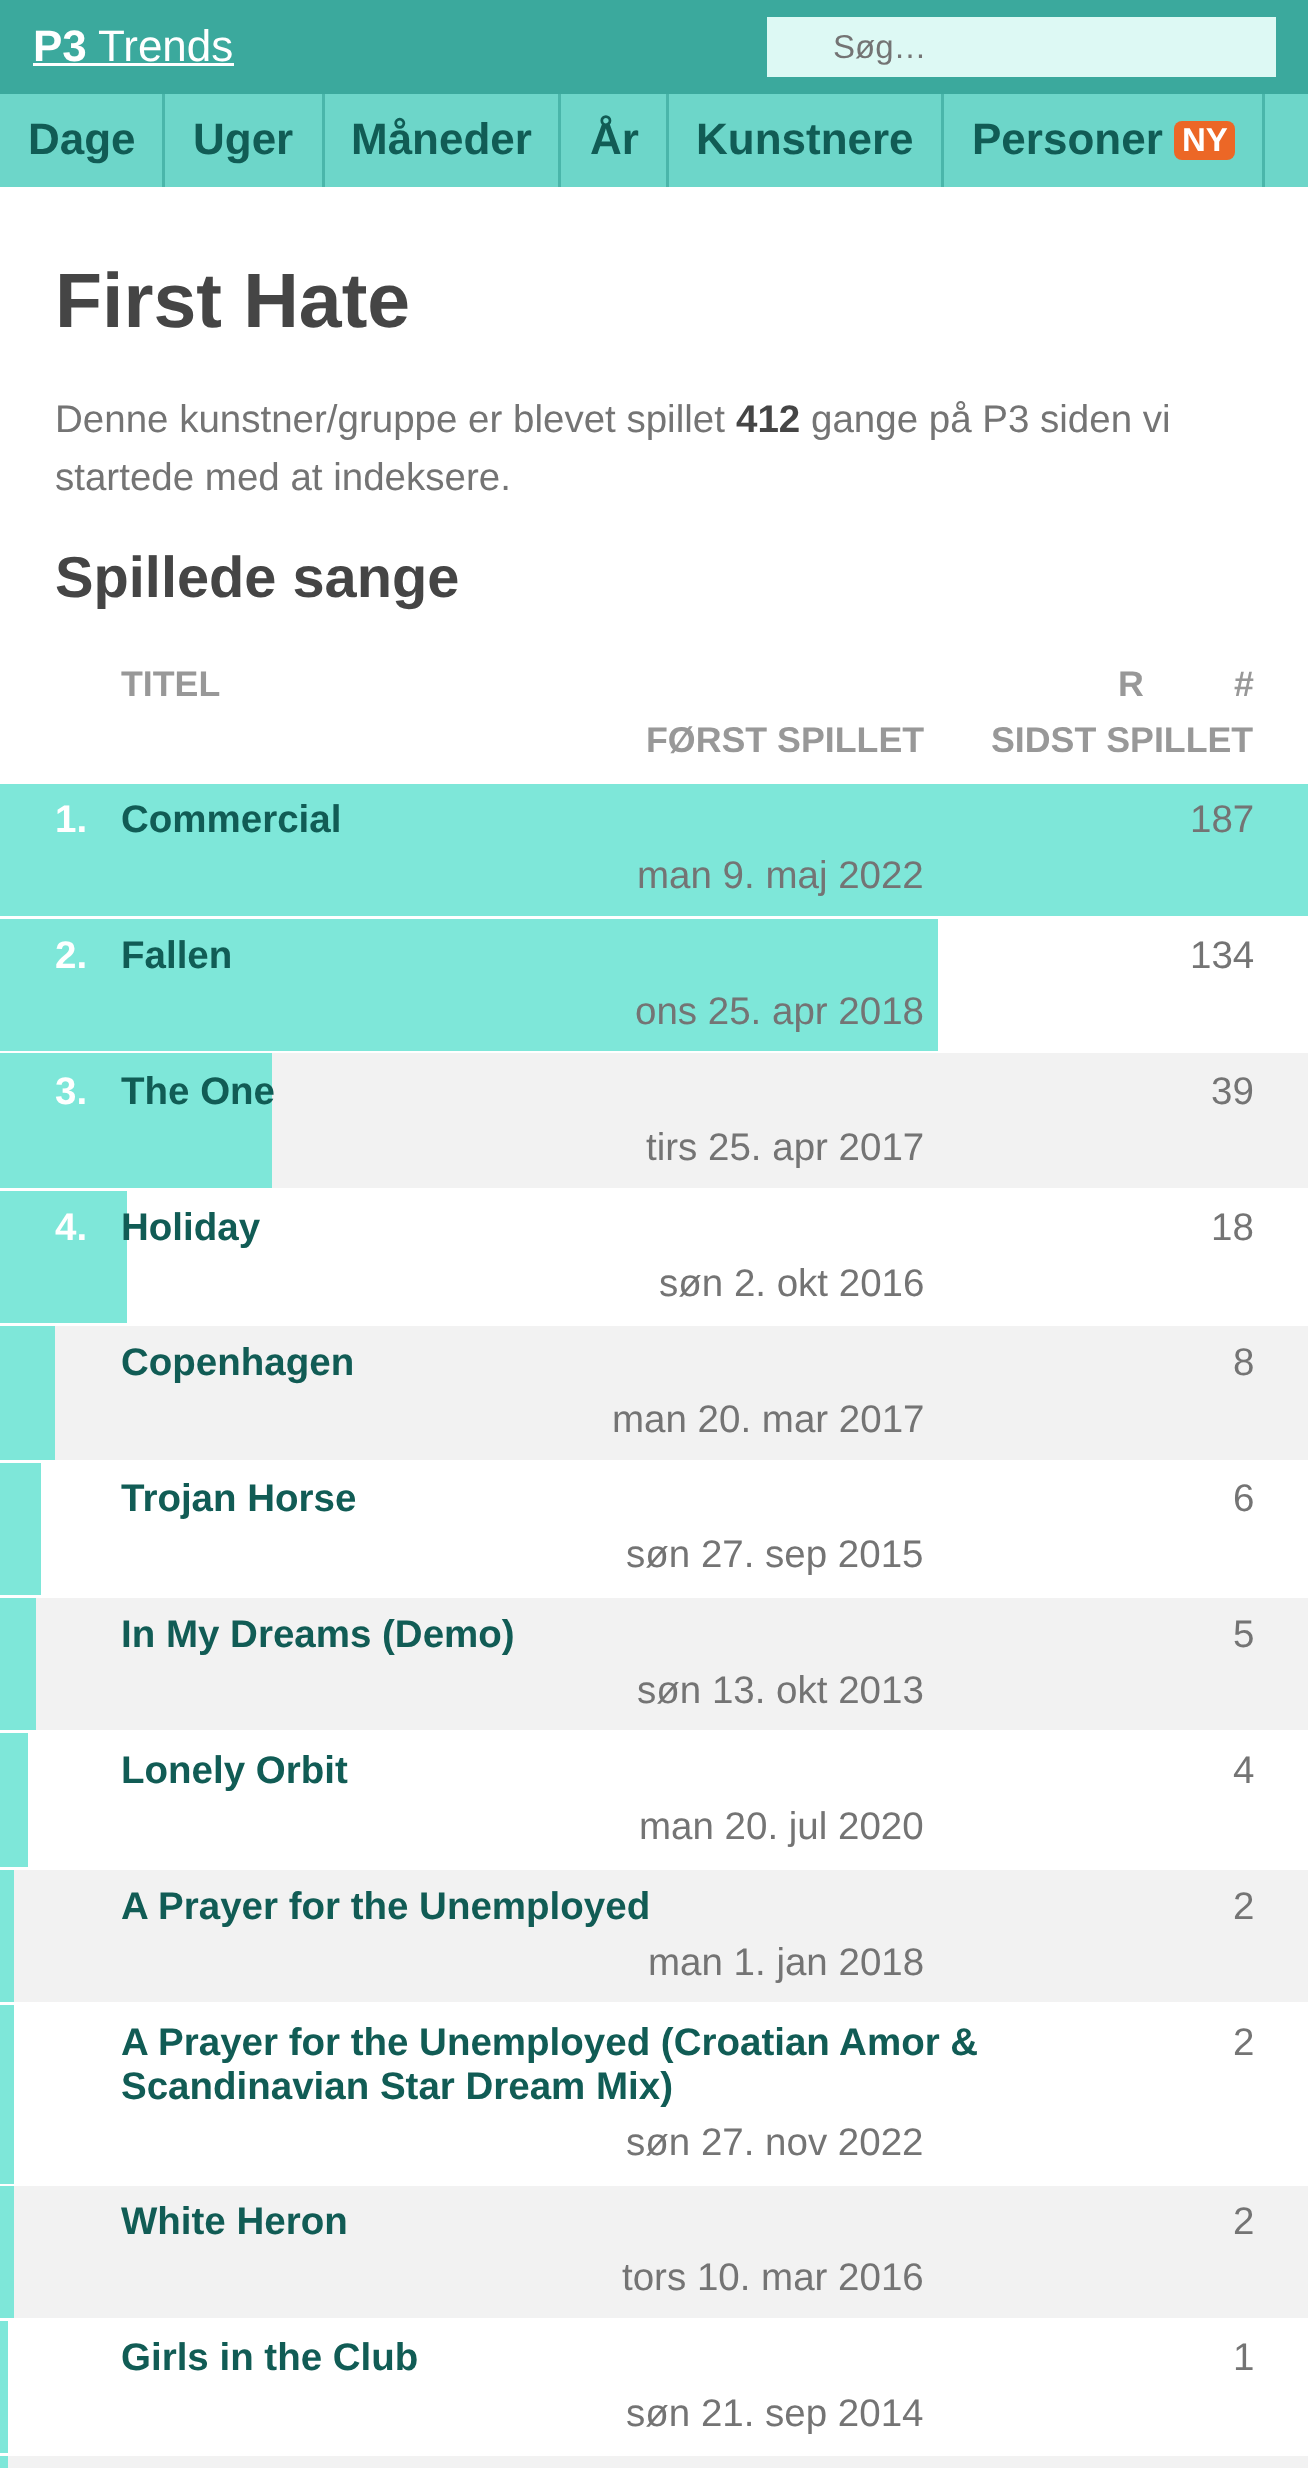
<svg xmlns="http://www.w3.org/2000/svg" width="1308" height="2468">
<rect width="100%" height="100%" fill="#fff"/>
<rect y="94" width="1308" height="93" fill="#6dd6c9"/>
<rect width="1308" height="94" fill="#3ba99d"/>
<text x="33" y="61" style="font-family:Liberation Sans;font-size:44px;font-weight:bold;fill:#fff">P3</text>
<rect x="33" y="63" width="201" height="3" fill="#fff"/>
<text x="98" y="61" style="font-family:Liberation Sans;font-size:44px;fill:#fff">Trends</text>
<rect x="767" y="17" width="509" height="60" fill="#ddf9f4"/>
<text x="833" y="58" style="font-family:Liberation Sans;font-size:33px;fill:#747474">Søg…</text>
<rect x="162" y="94" width="3" height="93" fill="#4ab6aa"/>
<text x="28" y="154" style="font-family:Liberation Sans;font-size:44px;font-weight:bold;fill:#115c55">Dage</text>
<rect x="322" y="94" width="3" height="93" fill="#4ab6aa"/>
<text x="193" y="154" style="font-family:Liberation Sans;font-size:44px;font-weight:bold;fill:#115c55">Uger</text>
<rect x="558" y="94" width="3" height="93" fill="#4ab6aa"/>
<text x="351" y="154" style="font-family:Liberation Sans;font-size:44px;font-weight:bold;fill:#115c55">Måneder</text>
<rect x="666" y="94" width="3" height="93" fill="#4ab6aa"/>
<text x="590" y="154" style="font-family:Liberation Sans;font-size:44px;font-weight:bold;fill:#115c55">År</text>
<rect x="941" y="94" width="3" height="93" fill="#4ab6aa"/>
<text x="696" y="154" style="font-family:Liberation Sans;font-size:44px;font-weight:bold;fill:#115c55">Kunstnere</text>
<rect x="1262" y="94" width="3" height="93" fill="#4ab6aa"/>
<text x="972" y="154" style="font-family:Liberation Sans;font-size:44px;font-weight:bold;fill:#115c55">Personer</text>
<rect x="1174" y="121" width="61" height="39" rx="8" fill="#ec6726"/>
<text x="1182" y="151" style="font-family:Liberation Sans;font-size:33px;font-weight:bold;fill:#fff">NY</text>
<text x="55" y="327" style="font-family:Liberation Sans;font-size:77px;font-weight:bold;fill:#454545">First Hate</text>
<text x="55" y="432" style="font-family:Liberation Sans;font-size:38.5px;fill:#747474">Denne kunstner/gruppe er blevet spillet</text>
<text x="736" y="432" style="font-family:Liberation Sans;font-size:38.5px;font-weight:bold;fill:#454545">412</text>
<text x="811" y="432" style="font-family:Liberation Sans;font-size:38.5px;fill:#747474">gange på P3 siden vi</text>
<text x="55" y="490" style="font-family:Liberation Sans;font-size:38.5px;fill:#747474">startede med at indeksere.</text>
<text x="55" y="597" style="font-family:Liberation Sans;font-size:57.75px;font-weight:bold;fill:#454545">Spillede sange</text>
<text x="121" y="696" style="font-family:Liberation Sans;font-size:35.75px;font-weight:bold;fill:#989898">TITEL</text>
<text x="1118" y="696" style="font-family:Liberation Sans;font-size:35.75px;font-weight:bold;fill:#989898">R</text>
<text x="1234" y="696" style="font-family:Liberation Sans;font-size:35.75px;font-weight:bold;fill:#989898">#</text>
<text x="646" y="752" style="font-family:Liberation Sans;font-size:35.75px;font-weight:bold;fill:#989898">FØRST SPILLET</text>
<text x="991" y="752" style="font-family:Liberation Sans;font-size:35.75px;font-weight:bold;fill:#989898">SIDST SPILLET</text>
<rect y="784" width="1308" height="132" fill="#7ee7d9"/>
<text x="55" y="832" style="font-family:Liberation Sans;font-size:38.5px;font-weight:bold;fill:#fff">1.</text>
<text x="121" y="832" style="font-family:Liberation Sans;font-size:38.5px;font-weight:bold;fill:#115c55">Commercial</text>
<text x="1190" y="832" style="font-family:Liberation Sans;font-size:38.5px;fill:#747474">187</text>
<text x="637" y="888" style="font-family:Liberation Sans;font-size:38.5px;fill:#747474">man 9. maj 2022</text>
<rect y="919" width="938" height="132" fill="#7ee7d9"/>
<text x="55" y="968" style="font-family:Liberation Sans;font-size:38.5px;font-weight:bold;fill:#fff">2.</text>
<text x="121" y="968" style="font-family:Liberation Sans;font-size:38.5px;font-weight:bold;fill:#115c55">Fallen</text>
<text x="1190" y="968" style="font-family:Liberation Sans;font-size:38.5px;fill:#747474">134</text>
<text x="635" y="1024" style="font-family:Liberation Sans;font-size:38.5px;fill:#747474">ons 25. apr 2018</text>
<rect x="272" y="1053" width="1036" height="135" fill="#f2f2f2"/>
<rect y="1053" width="272" height="135" fill="#7ee7d9"/>
<text x="55" y="1104" style="font-family:Liberation Sans;font-size:38.5px;font-weight:bold;fill:#fff">3.</text>
<text x="121" y="1104" style="font-family:Liberation Sans;font-size:38.5px;font-weight:bold;fill:#115c55">The One</text>
<text x="1211" y="1104" style="font-family:Liberation Sans;font-size:38.5px;fill:#747474">39</text>
<text x="646" y="1160" style="font-family:Liberation Sans;font-size:38.5px;fill:#747474">tirs 25. apr 2017</text>
<rect y="1191" width="127" height="132" fill="#7ee7d9"/>
<text x="55" y="1240" style="font-family:Liberation Sans;font-size:38.5px;font-weight:bold;fill:#fff">4.</text>
<text x="121" y="1240" style="font-family:Liberation Sans;font-size:38.5px;font-weight:bold;fill:#115c55">Holiday</text>
<text x="1211" y="1240" style="font-family:Liberation Sans;font-size:38.5px;fill:#747474">18</text>
<text x="659" y="1296" style="font-family:Liberation Sans;font-size:38.5px;fill:#747474">søn 2. okt 2016</text>
<rect x="55" y="1326" width="1253" height="134" fill="#f2f2f2"/>
<rect y="1326" width="55" height="134" fill="#7ee7d9"/>
<text x="121" y="1375" style="font-family:Liberation Sans;font-size:38.5px;font-weight:bold;fill:#115c55">Copenhagen</text>
<text x="1233" y="1375" style="font-family:Liberation Sans;font-size:38.5px;fill:#747474">8</text>
<text x="612" y="1432" style="font-family:Liberation Sans;font-size:38.5px;fill:#747474">man 20. mar 2017</text>
<rect y="1463" width="41" height="132" fill="#7ee7d9"/>
<text x="121" y="1511" style="font-family:Liberation Sans;font-size:38.5px;font-weight:bold;fill:#115c55">Trojan Horse</text>
<text x="1233" y="1511" style="font-family:Liberation Sans;font-size:38.5px;fill:#747474">6</text>
<text x="626" y="1567" style="font-family:Liberation Sans;font-size:38.5px;fill:#747474">søn 27. sep 2015</text>
<rect x="36" y="1598" width="1272" height="132" fill="#f2f2f2"/>
<rect y="1598" width="36" height="132" fill="#7ee7d9"/>
<text x="121" y="1647" style="font-family:Liberation Sans;font-size:38.5px;font-weight:bold;fill:#115c55">In My Dreams (Demo)</text>
<text x="1233" y="1647" style="font-family:Liberation Sans;font-size:38.5px;fill:#747474">5</text>
<text x="637" y="1703" style="font-family:Liberation Sans;font-size:38.5px;fill:#747474">søn 13. okt 2013</text>
<rect y="1733" width="28" height="134" fill="#7ee7d9"/>
<text x="121" y="1783" style="font-family:Liberation Sans;font-size:38.5px;font-weight:bold;fill:#115c55">Lonely Orbit</text>
<text x="1233" y="1783" style="font-family:Liberation Sans;font-size:38.5px;fill:#747474">4</text>
<text x="639" y="1839" style="font-family:Liberation Sans;font-size:38.5px;fill:#747474">man 20. jul 2020</text>
<rect x="14" y="1870" width="1294" height="132" fill="#f2f2f2"/>
<rect y="1870" width="14" height="132" fill="#7ee7d9"/>
<text x="121" y="1919" style="font-family:Liberation Sans;font-size:38.5px;font-weight:bold;fill:#115c55">A Prayer for the Unemployed</text>
<text x="1233" y="1919" style="font-family:Liberation Sans;font-size:38.5px;fill:#747474">2</text>
<text x="648" y="1975" style="font-family:Liberation Sans;font-size:38.5px;fill:#747474">man 1. jan 2018</text>
<rect y="2005" width="14" height="179" fill="#7ee7d9"/>
<text x="121" y="2055" style="font-family:Liberation Sans;font-size:38.5px;font-weight:bold;fill:#115c55">A Prayer for the Unemployed (Croatian Amor &amp;</text>
<text x="121" y="2099" style="font-family:Liberation Sans;font-size:38.5px;font-weight:bold;fill:#115c55">Scandinavian Star Dream Mix)</text>
<text x="1233" y="2055" style="font-family:Liberation Sans;font-size:38.5px;fill:#747474">2</text>
<text x="626" y="2155" style="font-family:Liberation Sans;font-size:38.5px;fill:#747474">søn 27. nov 2022</text>
<rect x="14" y="2186" width="1294" height="132" fill="#f2f2f2"/>
<rect y="2186" width="14" height="132" fill="#7ee7d9"/>
<text x="121" y="2234" style="font-family:Liberation Sans;font-size:38.5px;font-weight:bold;fill:#115c55">White Heron</text>
<text x="1233" y="2234" style="font-family:Liberation Sans;font-size:38.5px;fill:#747474">2</text>
<text x="622" y="2290" style="font-family:Liberation Sans;font-size:38.5px;fill:#747474">tors 10. mar 2016</text>
<rect y="2321" width="8" height="132" fill="#7ee7d9"/>
<text x="121" y="2370" style="font-family:Liberation Sans;font-size:38.5px;font-weight:bold;fill:#115c55">Girls in the Club</text>
<text x="1233" y="2370" style="font-family:Liberation Sans;font-size:38.5px;fill:#747474">1</text>
<text x="626" y="2426" style="font-family:Liberation Sans;font-size:38.5px;fill:#747474">søn 21. sep 2014</text>
<rect x="8" y="2456" width="1300" height="12" fill="#f2f2f2"/>
<rect y="2456" width="8" height="12" fill="#7ee7d9"/>
</svg>
